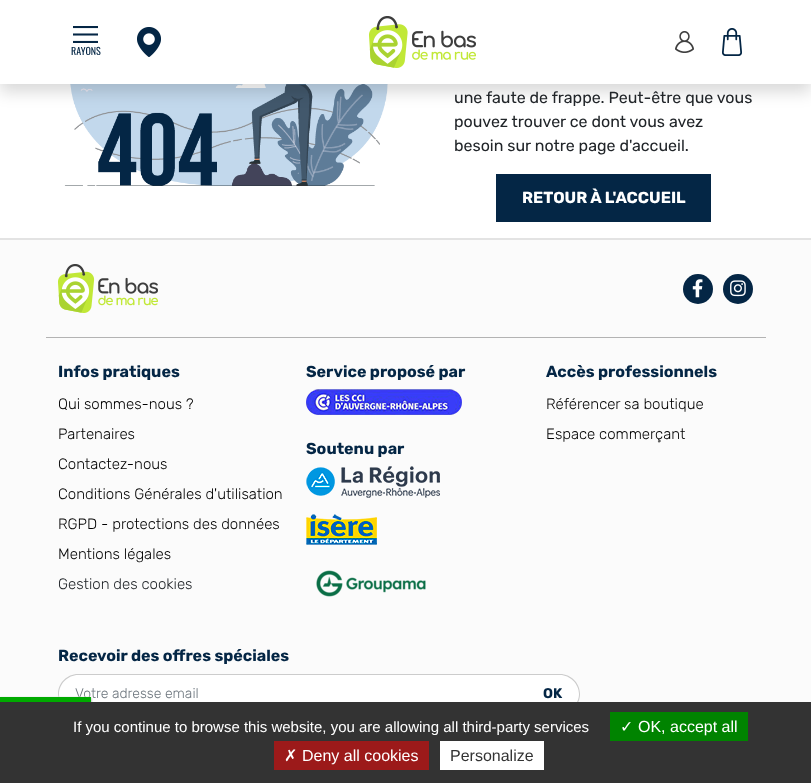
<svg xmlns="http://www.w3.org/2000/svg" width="811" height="783">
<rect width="100%" height="100%" fill="#fff"/>
<image x="61" y="84" width="331" height="102" href="media/6.png"/>
<rect y="8" width="811" height="84" fill="#00000026" filter="blur(8px)"/>
<rect width="811" height="84" fill="#fff"/>
<image x="73" y="26" width="25" height="17" href="media/1.png"/>
<text x="71" y="55" style="font-family:Oswald;font-size:10px;fill:#042645">RAYONS</text>
<image x="137" y="27" width="24" height="30" href="media/2.png"/>
<image x="369" y="16" width="107" height="52" href="media/3.png"/>
<image x="675" y="31" width="19" height="22" href="media/4.png"/>
<image x="722" y="28" width="20" height="28" href="media/5.png"/>
<text x="454" y="103" style="font-family:Rubik;font-size:16px;fill:#212529">une faute de frappe. Peut-être que vous</text>
<text x="454" y="127" style="font-family:Rubik;font-size:16px;fill:#212529">pouvez trouver ce dont vous avez</text>
<text x="454" y="151" style="font-family:Rubik;font-size:16px;fill:#212529">besoin sur notre page d'accueil.</text>
<rect x="496" y="174" width="215" height="48" fill="#042645"/>
<text x="522" y="203" style="font-family:Rubik;font-size:16px;font-weight:bold;fill:#fff">RETOUR À L'ACCUEIL</text>
<rect y="240" width="811" height="462" fill="#fbfbfb"/>
<rect y="238" width="811" height="2" fill="#e3e3e3"/>
<rect x="46" y="337" width="720" height="1" fill="#b3b3b3"/>
<image x="58" y="264" width="100" height="49" href="media/7.png"/>
<circle cx="698" cy="289" r="15" fill="#042645"/>
<image x="692" y="279" width="11" height="19" href="media/8.png"/>
<circle cx="738" cy="289" r="15" fill="#042645"/>
<image x="730" y="280" width="16" height="17" href="media/9.png"/>
<text x="58" y="377" style="font-family:Rubik;font-size:16px;font-weight:bold;fill:#042645">Infos pratiques</text>
<text x="58" y="409" style="font-family:Rubik;font-size:15px;font-weight:300;fill:#000">Qui sommes-nous ?</text>
<text x="58" y="439" style="font-family:Rubik;font-size:15px;font-weight:300;fill:#000">Partenaires</text>
<text x="58" y="469" style="font-family:Rubik;font-size:15px;font-weight:300;fill:#000">Contactez-nous</text>
<text x="58" y="499" style="font-family:Rubik;font-size:15px;font-weight:300;fill:#000">Conditions Générales d'utilisation</text>
<text x="58" y="529" style="font-family:Rubik;font-size:15px;font-weight:300;fill:#000">RGPD - protections des données</text>
<text x="58" y="559" style="font-family:Rubik;font-size:15px;font-weight:300;fill:#000">Mentions légales</text>
<text x="58" y="589" style="font-family:Rubik;font-size:15px;font-weight:300;fill:#212529">Gestion des cookies</text>
<text x="306" y="377" style="font-family:Rubik;font-size:16px;font-weight:bold;fill:#042645">Service proposé par</text>
<image x="306" y="389" width="156" height="26" href="media/10.png"/>
<text x="306" y="454" style="font-family:Rubik;font-size:16px;font-weight:bold;fill:#042645">Soutenu par</text>
<image x="306" y="466" width="134" height="32" href="media/11.png"/>
<image x="306" y="514" width="71" height="31" href="media/12.png"/>
<image x="316" y="570" width="110" height="27" href="media/13.png"/>
<text x="546" y="377" style="font-family:Rubik;font-size:16px;font-weight:bold;fill:#042645">Accès professionnels</text>
<text x="546" y="409" style="font-family:Rubik;font-size:15px;font-weight:300;fill:#000">Référencer sa boutique</text>
<text x="546" y="439" style="font-family:Rubik;font-size:15px;font-weight:300;fill:#000">Espace commerçant</text>
<text x="58" y="661" style="font-family:Rubik;font-size:16px;font-weight:bold;fill:#042645">Recevoir des offres spéciales</text>
<path d="M78 675h459v38h-459c-10.5 0-19-8.5-19-19c0-10.5 8.5-19 19-19z" fill="#fff"/>
<path d="M78 674h459v40h-459c-11 0-20-9-20-20c0-11 9-20 20-20zm0 1h459v38h-459c-10 0-19-9-19-19c0-10 9-19 19-19z" fill="#ccc" fill-rule="evenodd"/>
<text x="75" y="698" style="font-family:Rubik;font-size:14px;font-weight:300;fill:#6c757d">Votre adresse email</text>
<path d="M536 674h24c11 0 20 9 20 20c0 11-9 20-20 20h-24z" fill="#fff"/>
<path d="M536 674h24c11 0 20 9 20 20c0 11-9 20-20 20h-24zm0 1h24c10 0 19 9 19 19c0 10-9 19-19 19h-24z" fill="#ccc" fill-rule="evenodd"/>
<text x="543" y="698" style="font-family:Rubik;font-size:14px;font-weight:bold;fill:#042645">OK</text>
<rect y="698" width="91" height="5" fill="#555" filter="blur(1px)"/>
<rect y="697" width="91" height="5" fill="#fff" filter="blur(1px)"/>
<rect y="697" width="91" height="5" fill="#0a0"/>
<rect y="702" width="811" height="81" fill="#333"/>
<text x="73" y="732" style="font-family:Liberation Sans;font-size:15px;fill:#fff">If you continue to browse this website, you are allowing all third-party services</text>
<rect x="610" y="712" width="138" height="29" fill="#008300"/>
<text x="620" y="732" style="font-family:DejaVu Sans;font-size:16px;fill:#fff">✓</text>
<text x="638" y="732" style="font-family:Liberation Sans;font-size:16px;fill:#fff">OK, accept all</text>
<rect x="274" y="741" width="155" height="29" fill="#9c1a1a"/>
<text x="284" y="761" style="font-family:DejaVu Sans;font-size:16px;fill:#fff">✗</text>
<text x="302" y="761" style="font-family:Liberation Sans;font-size:16px;fill:#fff">Deny all cookies</text>
<rect x="440" y="741" width="104" height="29" fill="#fff"/>
<text x="450" y="761" style="font-family:Liberation Sans;font-size:16px;fill:#333">Personalize</text>
</svg>
